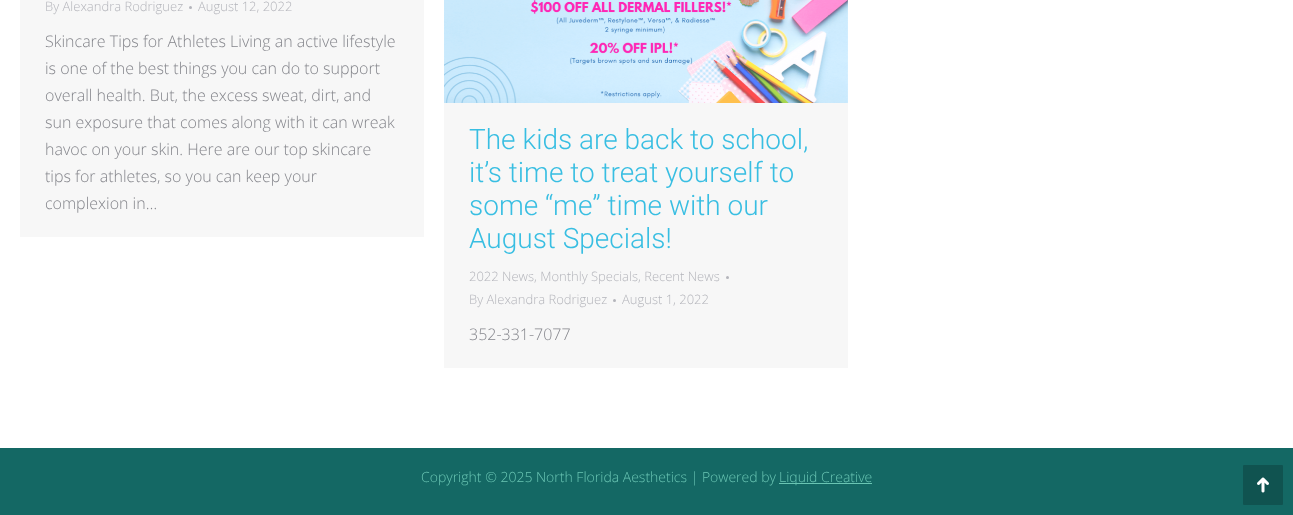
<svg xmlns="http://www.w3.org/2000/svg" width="1293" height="515">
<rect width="100%" height="100%" fill="#146864"/>
<rect width="1293" height="448" fill="#fff"/>
<rect x="20" width="404" height="237" fill="#f7f7f7"/>
<text x="45" y="11" style="font-family:Open Sans;font-size:13px;font-weight:300;fill:#b4b5bb">By Alexandra Rodriguez</text>
<circle cx="190.5" cy="7.5" r="1.5" fill="#b4b5bb"/>
<text x="198" y="11" style="font-family:Open Sans;font-size:13px;font-weight:300;fill:#b4b5bb">August 12, 2022</text>
<text x="45" y="47" style="font-family:Open Sans;font-size:16px;font-weight:300;fill:#85868c">Skincare Tips for Athletes Living an active lifestyle</text>
<text x="45" y="74" style="font-family:Open Sans;font-size:16px;font-weight:300;fill:#85868c">is one of the best things you can do to support</text>
<text x="45" y="101" style="font-family:Open Sans;font-size:16px;font-weight:300;fill:#85868c">overall health. But, the excess sweat, dirt, and</text>
<text x="45" y="128" style="font-family:Open Sans;font-size:16px;font-weight:300;fill:#85868c">sun exposure that comes along with it can wreak</text>
<text x="45" y="155" style="font-family:Open Sans;font-size:16px;font-weight:300;fill:#85868c">havoc on your skin. Here are our top skincare</text>
<text x="45" y="182" style="font-family:Open Sans;font-size:16px;font-weight:300;fill:#85868c">tips for athletes, so you can keep your</text>
<text x="45" y="209" style="font-family:Open Sans;font-size:16px;font-weight:300;fill:#85868c">complexion in…</text>
<rect x="444" width="404" height="368" fill="#f7f7f7"/>
<image x="444" y="0" width="404" height="103" href="media/1.png"/>
<text x="469" y="149" style="font-family:Roboto;font-size:28px;font-weight:300;fill:#38bee2">The kids are back to school,</text>
<text x="469" y="182" style="font-family:Roboto;font-size:28px;font-weight:300;fill:#38bee2">it’s time to treat yourself to</text>
<text x="469" y="215" style="font-family:Roboto;font-size:28px;font-weight:300;fill:#38bee2">some “me” time with our</text>
<text x="469" y="248" style="font-family:Roboto;font-size:28px;font-weight:300;fill:#38bee2">August Specials!</text>
<text x="469" y="281" style="font-family:Open Sans;font-size:13px;font-weight:300;fill:#b4b5bb">2022 News, Monthly Specials, Recent News</text>
<circle cx="727.5" cy="277.5" r="1.5" fill="#b4b5bb"/>
<text x="469" y="304" style="font-family:Open Sans;font-size:13px;font-weight:300;fill:#b4b5bb">By Alexandra Rodriguez</text>
<circle cx="614.5" cy="300.5" r="1.5" fill="#b4b5bb"/>
<text x="622" y="304" style="font-family:Open Sans;font-size:13px;font-weight:300;fill:#b4b5bb">August 1, 2022</text>
<text x="469" y="340" style="font-family:Open Sans;font-size:16px;font-weight:300;fill:#85868c">352-331-7077</text>
<rect x="1243" y="465" width="40" height="40" rx="1" fill="#105350"/>
<image x="1257" y="477" width="12" height="16" href="media/2.png"/>
<text x="421" y="482" style="font-family:Open Sans;font-size:14px;font-weight:300;fill:#69c5b3">Copyright © 2025 North Florida Aesthetics | Powered by</text>
<rect x="779" y="483" width="93" height="1" fill="#69c5b3"/>
<text x="779" y="482" style="font-family:Open Sans;font-size:14px;font-weight:300;fill:#69c5b3">Liquid Creative</text>
</svg>
